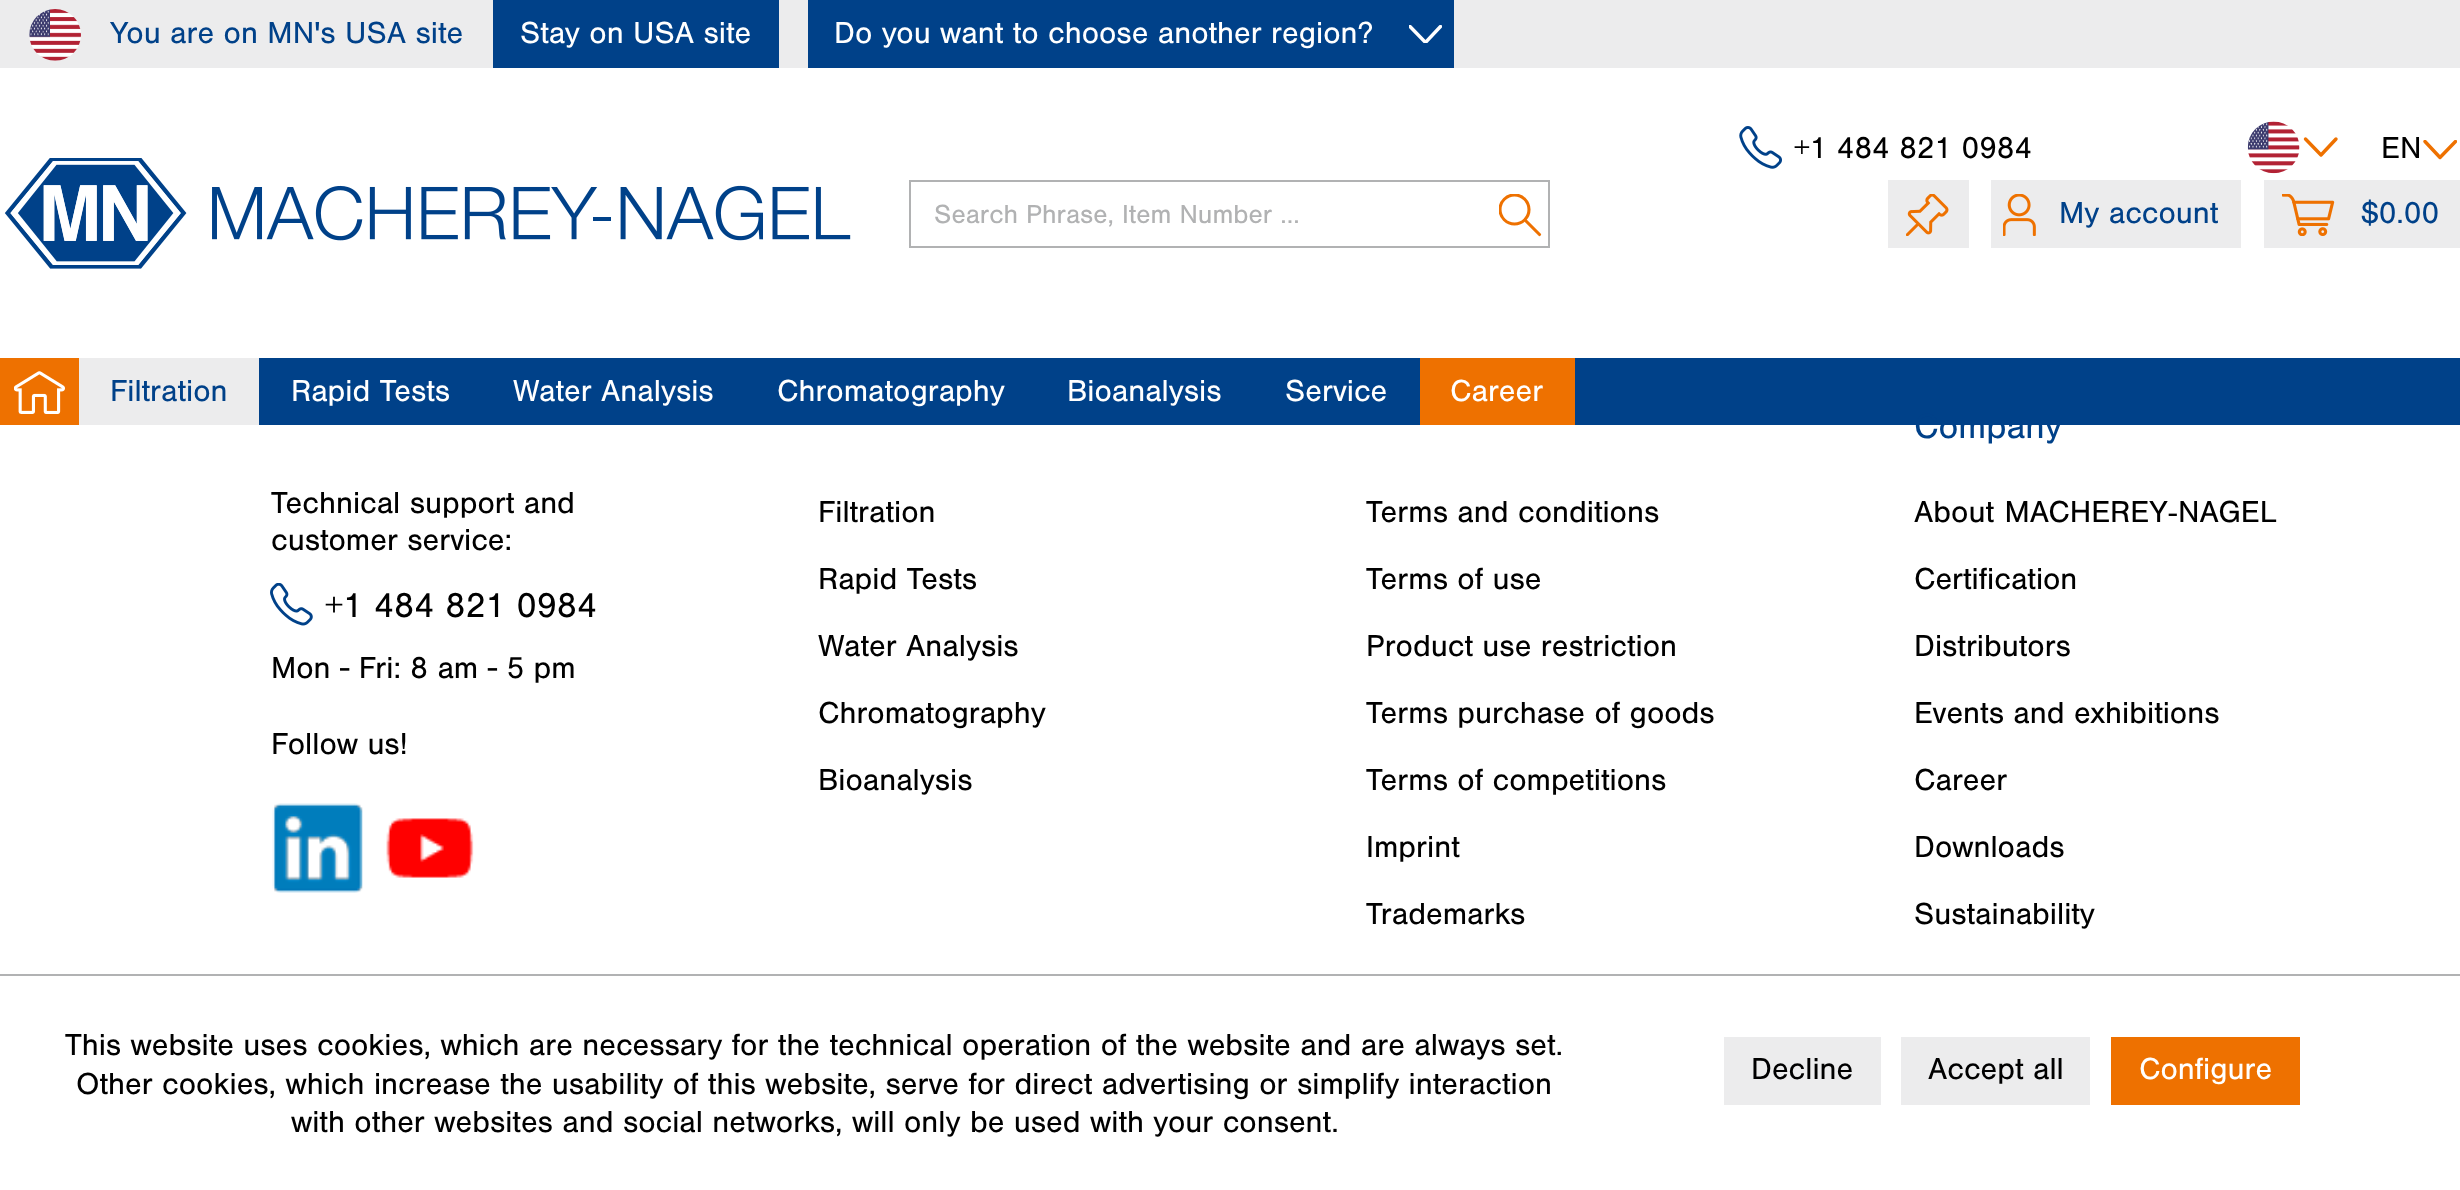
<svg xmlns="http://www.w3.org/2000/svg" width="2460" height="1190">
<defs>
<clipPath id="clip1"><rect x="1409" y="25" width="33" height="18"/></clipPath>
<clipPath id="clip2"><rect x="2423" y="140" width="34" height="20"/></clipPath>
<clipPath id="clip3"><rect x="1499" y="194" width="42" height="42"/></clipPath>
</defs>
<rect width="100%" height="100%" fill="#fff"/>
<rect width="2460" height="68" fill="#ececed"/>
<image x="29" y="9" width="52" height="52" href="media/1.png"/>
<text x="110" y="43" style="font-family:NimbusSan;font-size:31.5px;fill:#004189">You are on MN's USA site</text>
<rect x="493" width="286" height="68" fill="#004189"/>
<text x="520" y="43" style="font-family:NimbusSan;font-size:31.5px;fill:#fff">Stay on USA site</text>
<rect x="808" width="646" height="68" fill="#004189"/>
<text x="834" y="43" style="font-family:NimbusSan;font-size:31.5px;fill:#fff">Do you want to choose another region?</text>
<g clip-path="url(#clip1)">
<path d="M1440.5 26.5l-15 16l-15.5-16" fill="none" stroke="#fff" stroke-width="3.4" stroke-linecap="round" stroke-linejoin="round"/>
</g>
<image x="1739" y="126" width="43" height="43" href="media/2.png"/>
<text x="1794" y="158" style="font-family:NimbusSan;font-size:31.5px;fill:#000">+1 484 821 0984</text>
<image x="2247" y="121" width="53" height="53" href="media/3.png"/>
<path d="M2336 139l-15 16l-15.5-16" fill="none" stroke="#ee7100" stroke-width="3.4" stroke-linecap="round" stroke-linejoin="round"/>
<text x="2381" y="158" style="font-family:NimbusSan;font-size:31.5px;fill:#000">EN</text>
<g clip-path="url(#clip2)">
<path d="M2455.5 141.5l-15.5 16l-15-16" fill="none" stroke="#ee7100" stroke-width="3.4" stroke-linecap="round" stroke-linejoin="round"/>
</g>
<image x="4" y="158" width="847" height="111" href="media/4.png"/>
<rect x="910" y="181" width="639" height="66" fill="none" stroke="#b1b2b3" stroke-width="2"/>
<text x="934" y="223" style="font-family:NimbusSan;font-size:27px;fill:#b1b2b3">Search Phrase, Item Number ...</text>
<g clip-path="url(#clip3)">
<circle cx="1514.5" cy="209.5" r="14.5" fill="none" stroke="#ee7100" stroke-width="3.1"/>
</g>
<path d="M1526 221l13.5 13.5" fill="none" stroke="#ee7100" stroke-width="3.1" stroke-linecap="round"/>
<rect x="1888" y="180" width="81" height="68" fill="#ececed"/>
<image x="1906" y="194" width="43" height="42" href="media/5.png"/>
<rect x="1991" y="180" width="250" height="68" fill="#ececed"/>
<image x="2003" y="194" width="33" height="42" href="media/6.png"/>
<text x="2059" y="223" style="font-family:NimbusSan;font-size:31.5px;fill:#004189">My account</text>
<rect x="2264" y="180" width="196" height="68" fill="#ececed"/>
<image x="2282" y="194" width="53" height="42" href="media/7.png"/>
<text x="2361" y="223" style="font-family:NimbusSan;font-size:31.5px;fill:#004189">$0.00</text>
<rect x="259" y="358" width="2201" height="67" fill="#004189"/>
<rect y="358" width="79" height="67" fill="#ee7100"/>
<image x="14" y="371" width="51" height="43" href="media/8.png"/>
<rect x="79" y="358" width="180" height="67" fill="#ececed"/>
<text x="110" y="401" style="font-family:NimbusSan;font-size:31.5px;fill:#004189">Filtration</text>
<text x="291" y="401" style="font-family:NimbusSan;font-size:31.5px;fill:#fff">Rapid Tests</text>
<text x="513" y="401" style="font-family:NimbusSan;font-size:31.5px;fill:#fff">Water Analysis</text>
<text x="777" y="401" style="font-family:NimbusSan;font-size:31.5px;fill:#fff">Chromatography</text>
<text x="1067" y="401" style="font-family:NimbusSan;font-size:31.5px;fill:#fff">Bioanalysis</text>
<text x="1285" y="401" style="font-family:NimbusSan;font-size:31.5px;fill:#fff">Service</text>
<rect x="1420" y="358" width="155" height="67" fill="#ee7100"/>
<text x="1450" y="401" style="font-family:NimbusSan;font-size:31.5px;fill:#fff">Career</text>
<text x="271" y="513" style="font-family:NimbusSan;font-size:31.5px;fill:#000">Technical support and</text>
<text x="271" y="550" style="font-family:NimbusSan;font-size:31.5px;fill:#000">customer service:</text>
<image x="270" y="583" width="43" height="43" href="media/9.png"/>
<text x="325" y="617" style="font-family:NimbusSan;font-size:36px;fill:#000">+1 484 821 0984</text>
<text x="271" y="678" style="font-family:NimbusSan;font-size:31.5px;fill:#000">Mon - Fri: 8 am - 5 pm</text>
<text x="271" y="754" style="font-family:NimbusSan;font-size:31.5px;fill:#000">Follow us!</text>
<image x="272" y="803" width="91" height="90" href="media/10.png"/>
<image x="386" y="818" width="88" height="60" href="media/11.png"/>
<text x="818" y="522" style="font-family:NimbusSan;font-size:31.5px;fill:#000">Filtration</text>
<text x="818" y="589" style="font-family:NimbusSan;font-size:31.5px;fill:#000">Rapid Tests</text>
<text x="818" y="656" style="font-family:NimbusSan;font-size:31.5px;fill:#000">Water Analysis</text>
<text x="818" y="723" style="font-family:NimbusSan;font-size:31.5px;fill:#000">Chromatography</text>
<text x="818" y="790" style="font-family:NimbusSan;font-size:31.5px;fill:#000">Bioanalysis</text>
<text x="1366" y="522" style="font-family:NimbusSan;font-size:31.5px;fill:#000">Terms and conditions</text>
<text x="1366" y="589" style="font-family:NimbusSan;font-size:31.5px;fill:#000">Terms of use</text>
<text x="1366" y="656" style="font-family:NimbusSan;font-size:31.5px;fill:#000">Product use restriction</text>
<text x="1366" y="723" style="font-family:NimbusSan;font-size:31.5px;fill:#000">Terms purchase of goods</text>
<text x="1366" y="790" style="font-family:NimbusSan;font-size:31.5px;fill:#000">Terms of competitions</text>
<text x="1366" y="857" style="font-family:NimbusSan;font-size:31.5px;fill:#000">Imprint</text>
<text x="1366" y="924" style="font-family:NimbusSan;font-size:31.5px;fill:#000">Trademarks</text>
<text x="1914" y="438" style="font-family:NimbusSan;font-size:36px;fill:#004189">Company</text>
<text x="1914" y="522" word-spacing="1" style="font-family:NimbusSan;font-size:31.5px;fill:#000">About MACHEREY‑NAGEL</text>
<text x="1914" y="589" style="font-family:NimbusSan;font-size:31.5px;fill:#000">Certification</text>
<text x="1914" y="656" style="font-family:NimbusSan;font-size:31.5px;fill:#000">Distributors</text>
<text x="1914" y="723" style="font-family:NimbusSan;font-size:31.5px;fill:#000">Events and exhibitions</text>
<text x="1914" y="790" style="font-family:NimbusSan;font-size:31.5px;fill:#000">Career</text>
<text x="1914" y="857" style="font-family:NimbusSan;font-size:31.5px;fill:#000">Downloads</text>
<text x="1914" y="924" style="font-family:NimbusSan;font-size:31.5px;fill:#000">Sustainability</text>
<rect y="974" width="2460" height="2" fill="#b1b2b3"/>
<text x="65" y="1055" style="font-family:NimbusSan;font-size:31.5px;fill:#000">This website uses cookies, which are necessary for the technical operation of the website and are always set.</text>
<text x="76" y="1094" style="font-family:NimbusSan;font-size:31.5px;fill:#000">Other cookies, which increase the usability of this website, serve for direct advertising or simplify interaction</text>
<text x="291" y="1132" style="font-family:NimbusSan;font-size:31.5px;fill:#000">with other websites and social networks, will only be used with your consent.</text>
<rect x="1724" y="1037" width="157" height="68" fill="#ececed"/>
<text x="1751" y="1079" style="font-family:NimbusSan;font-size:31.5px;fill:#000">Decline</text>
<rect x="1901" y="1037" width="189" height="68" fill="#ececed"/>
<text x="1928" y="1079" style="font-family:NimbusSan;font-size:31.5px;fill:#000">Accept all</text>
<rect x="2111" y="1037" width="189" height="68" fill="#ee7100"/>
<text x="2139" y="1079" style="font-family:NimbusSan;font-size:31.5px;fill:#fff">Configure</text>
</svg>
